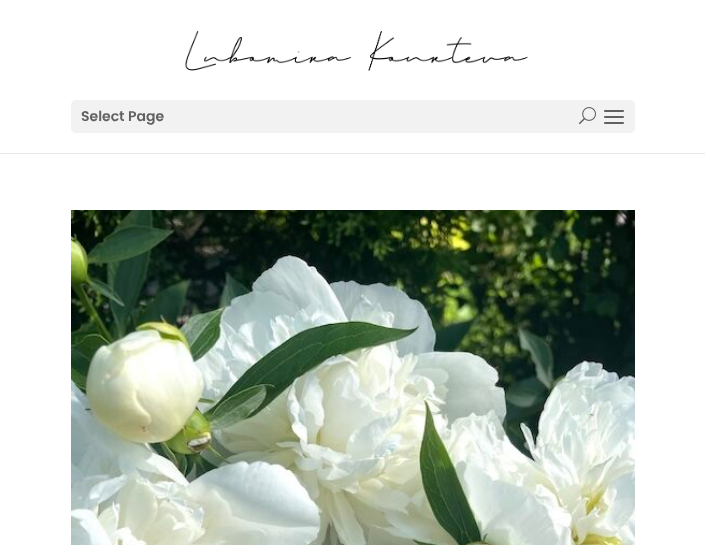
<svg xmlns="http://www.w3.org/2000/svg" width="705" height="545">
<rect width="100%" height="100%" fill="#fff"/>
<rect y="153" width="705" height="1" fill="#e6e6e6"/>
<image x="185" y="31" width="343" height="40" href="media/1.png"/>
<rect x="71" y="100" width="564" height="33" rx="5" fill="#f2f2f2"/>
<text x="81" y="121" style="font-family:Poppins;font-size:14px;font-weight:600;fill:#616161">Select Page</text>
<image x="604" y="110" width="20" height="14" href="media/2.png"/>
<image x="579" y="107" width="17" height="18" href="media/3.png"/>
<image x="71" y="210" width="564" height="335" href="media/4.png"/>
</svg>
